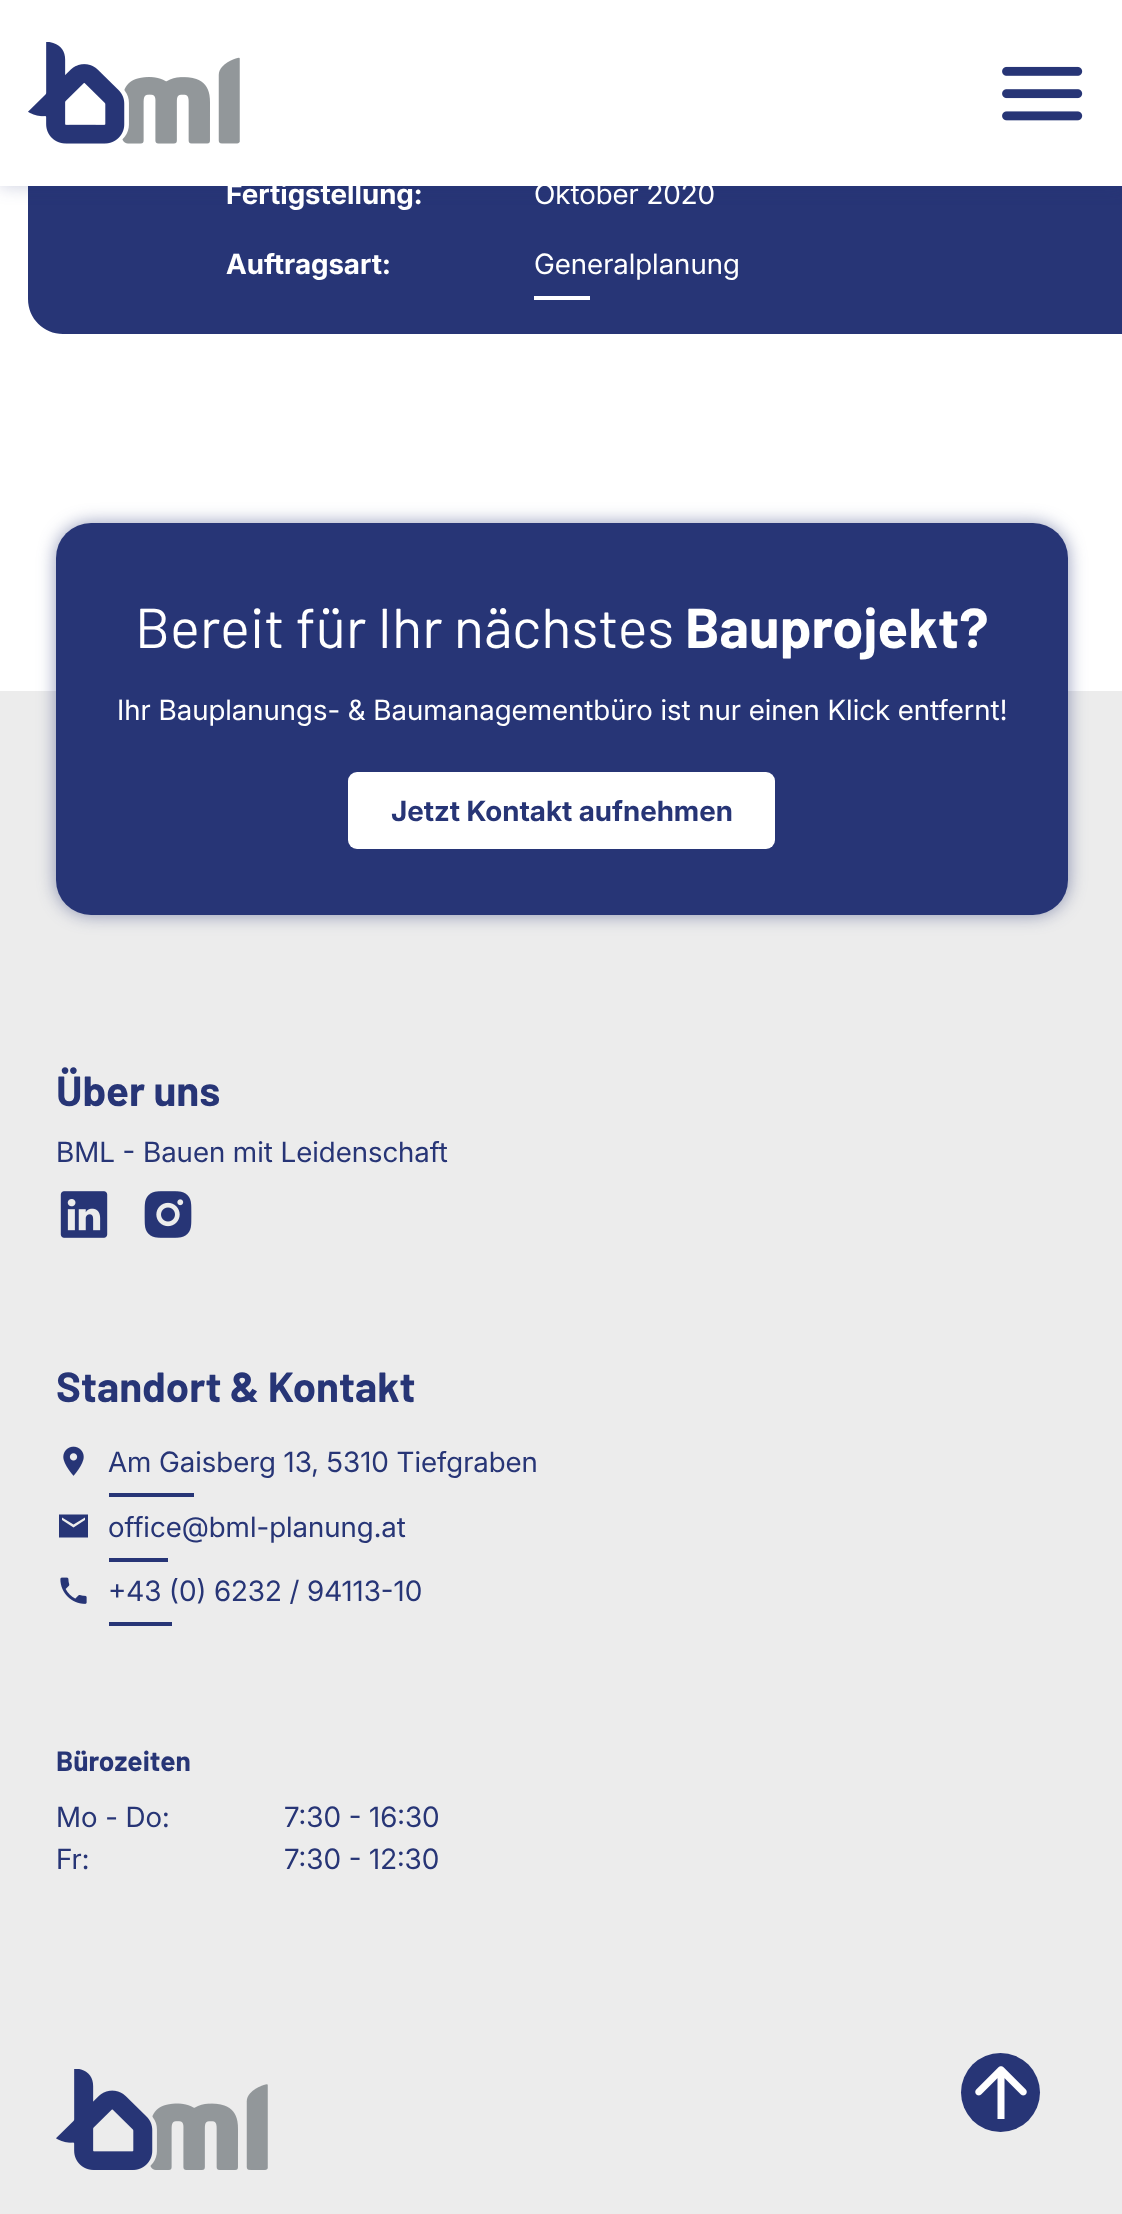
<svg xmlns="http://www.w3.org/2000/svg" width="1122" height="2214">
<defs>
<linearGradient id="g1" gradientUnits="userSpaceOnUse" x1="562" y1="523" x2="562" y2="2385"><stop offset="0" stop-color="#fff"/><stop offset="0.09" stop-color="#fff"/><stop offset="0.09" stop-color="#ececec"/></linearGradient>
</defs>
<rect width="100%" height="100%" fill="#fff"/>
<path d="M63-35h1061v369h-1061c-19.5 0-35-15.5-35-35v-299c0-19.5 15.5-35 35-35z" fill="#273576"/>
<rect width="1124" height="186" fill="#27357640" filter="blur(9px)"/>
<rect width="1122" height="186" fill="#fff"/>
<image x="28" y="42" width="212" height="102" href="media/1.png"/>
<image x="1002" y="66" width="81" height="55" href="media/2.png"/>
<text x="226" y="204" style="font-family:Inter;font-size:28px;font-weight:bold;fill:#fff">Fertigstellung:</text>
<text x="534" y="204" style="font-family:Inter;font-size:28px;fill:#fff">Oktober 2020</text>
<text x="226" y="274" style="font-family:Inter;font-size:28px;font-weight:bold;fill:#fff">Auftragsart:</text>
<text x="534" y="274" style="font-family:Inter;font-size:28px;fill:#fff">Generalplanung</text>
<rect x="534" y="296" width="56" height="4" fill="#fff"/>
<rect y="691" width="1122" height="1523" fill="url(#g1)"/>
<rect x="56" y="523" width="1012" height="392" rx="35" fill="#27357680" filter="blur(9px)"/>
<rect x="56" y="523" width="1012" height="392" rx="35" fill="#273576"/>
<text x="135" y="648" style="font-family:Barlow;font-size:56px;fill:#fff">Bereit für Ihr nächstes</text>
<text x="685" y="648" style="font-family:Barlow;font-size:56px;font-weight:bold;fill:#fff">Bauprojekt?</text>
<text x="117" y="720" style="font-family:Inter;font-size:28px;fill:#fff">Ihr Bauplanungs- &amp; Baumanagementbüro ist nur einen Klick entfernt!</text>
<rect x="348" y="772" width="427" height="77" rx="9" fill="#fff"/>
<text x="391" y="821" style="font-family:Inter;font-size:28px;font-weight:bold;fill:#273576">Jetzt Kontakt aufnehmen</text>
<text x="56" y="1106" style="font-family:Barlow;font-size:42px;font-weight:bold;fill:#273576">Über uns</text>
<text x="56" y="1162" style="font-family:Inter;font-size:28px;fill:#273576">BML - Bauen mit Leidenschaft</text>
<image x="60" y="1191" width="48" height="47" href="media/3.png"/>
<image x="144" y="1191" width="48" height="47" href="media/4.png"/>
<text x="56" y="1402" style="font-family:Barlow;font-size:42px;font-weight:bold;fill:#273576">Standort &amp; Kontakt</text>
<image x="63" y="1446" width="21" height="30" href="media/5.png"/>
<text x="108" y="1472" style="font-family:Inter;font-size:28px;fill:#273576">Am Gaisberg 13, 5310 Tiefgraben</text>
<rect x="109" y="1493" width="85" height="4" fill="#273576"/>
<path d="M59 1537.5v-23h29v23zm14.5-10l11.5-7.5v-2.5l-11.5 7l-11.5-7v2.5z" fill="#273576"/>
<text x="108" y="1537" style="font-family:Inter;font-size:28px;fill:#273576">office@bml-planung.at</text>
<rect x="109" y="1558" width="59" height="4" fill="#273576"/>
<image x="60" y="1577" width="27" height="27" href="media/6.png"/>
<text x="108" y="1601" style="font-family:Inter;font-size:28px;fill:#273576">+43 (0) 6232 / 94113-10</text>
<rect x="109" y="1622" width="63" height="4" fill="#273576"/>
<text x="56" y="1771" style="font-family:Barlow;font-size:28px;font-weight:bold;fill:#273576">Bürozeiten</text>
<text x="56" y="1827" style="font-family:Inter;font-size:28px;fill:#273576">Mo - Do:</text>
<text x="284" y="1827" style="font-family:Inter;font-size:28px;fill:#273576">7:30 - 16:30</text>
<text x="56" y="1869" style="font-family:Inter;font-size:28px;fill:#273576">Fr:</text>
<text x="284" y="1869" style="font-family:Inter;font-size:28px;fill:#273576">7:30 - 12:30</text>
<image x="56" y="2069" width="212" height="101" href="media/7.png"/>
<circle cx="1000.5" cy="2092.5" r="39.5" fill="#273576"/>
<image x="975" y="2066" width="52" height="53" href="media/8.png"/>
</svg>
